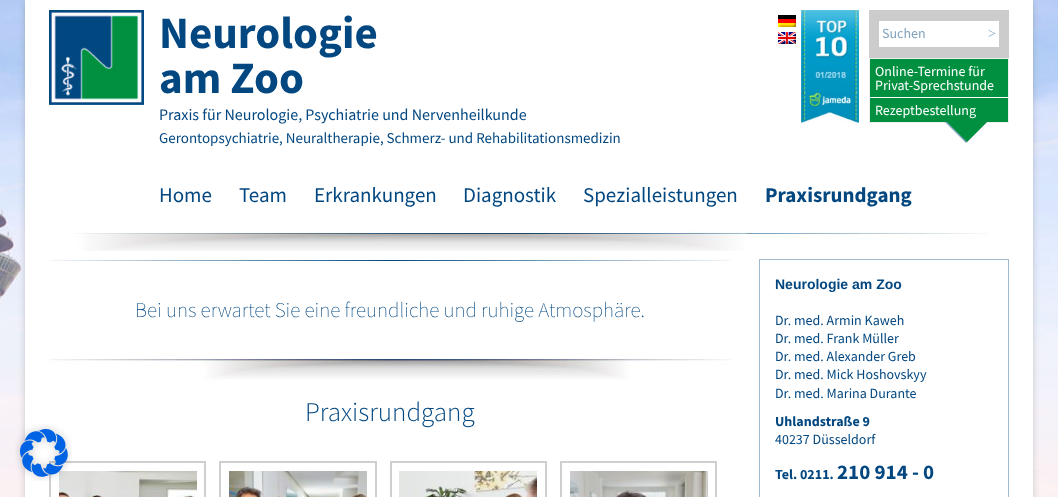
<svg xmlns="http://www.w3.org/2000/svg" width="1058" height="497">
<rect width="100%" height="100%" fill="#fff"/>
<image x="0" y="0" width="1058" height="497" href="media/1.png"/>
<rect x="25" y="2" width="1008" height="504" fill="#6464644d" filter="blur(3px)"/>
<rect x="25" width="1008" height="497" fill="#fff"/>
<rect x="50" y="462" width="155" height="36" fill="none" stroke="#cfcfcf" stroke-width="2"/>
<image x="59" y="471" width="138" height="26" href="media/10.png"/>
<image x="15" y="424" width="57" height="57" href="media/2.png"/>
<image x="49" y="10" width="95" height="95" href="media/3.png"/>
<text x="159" y="48" style="font-family:Source Sans Pro;font-size:45px;font-weight:bold;fill:#024780">Neurologie</text>
<text x="159" y="93" style="font-family:Source Sans Pro;font-size:45px;font-weight:bold;fill:#024780">am Zoo</text>
<text x="159" y="120" style="font-family:Source Sans Pro;font-size:16px;fill:#024780">Praxis für Neurologie, Psychiatrie und Nervenheilkunde</text>
<image x="778" y="15" width="18" height="12" href="media/4.png"/>
<image x="778" y="32" width="18" height="12" href="media/5.png"/>
<image x="801" y="10" width="58" height="113" href="media/6.png"/>
<rect x="869" y="10" width="140" height="48" fill="#ccc"/>
<rect x="879" y="21" width="120" height="26" fill="#fff"/>
<text x="882" y="38" style="font-family:Source Sans Pro;font-size:14px;fill:#82a4bf">Suchen</text>
<text x="988" y="38" style="font-family:Liberation Serif;font-size:14px;fill:#82a4bf">&gt;</text>
<rect x="869.5" y="58.5" width="139" height="64" fill="#019040" stroke="#eee"/>
<rect x="870" y="97" width="138" height="1" fill="#fff"/>
<text x="875" y="76" style="font-family:Source Sans Pro;font-size:14px;fill:#fff">Online-Termine für</text>
<text x="875" y="90" style="font-family:Source Sans Pro;font-size:14px;fill:#fff">Privat-Sprechstunde</text>
<text x="875" y="115" style="font-family:Source Sans Pro;font-size:14px;fill:#fff">Rezeptbestellung</text>
<path d="M945 122h42l-21 21z" fill="#80a3bf"/>
<path d="M947 122h40l-20 20z" fill="#019040"/>
<text x="159" y="143" style="font-family:Source Sans Pro;font-size:15px;fill:#024780">Gerontopsychiatrie, Neuraltherapie, Schmerz- und Rehabilitationsmedizin</text>
<text x="159" y="202" style="font-family:Source Sans Pro;font-size:21px;fill:#024780">Home</text>
<text x="239" y="202" style="font-family:Source Sans Pro;font-size:21px;fill:#024780">Team</text>
<text x="314" y="202" style="font-family:Source Sans Pro;font-size:21px;fill:#024780">Erkrankungen</text>
<text x="463" y="202" style="font-family:Source Sans Pro;font-size:21px;fill:#024780">Diagnostik</text>
<text x="583" y="202" style="font-family:Source Sans Pro;font-size:21px;fill:#024780">Spezialleistungen</text>
<text x="765" y="202" style="font-family:Source Sans Pro;font-size:21px;font-weight:bold;fill:#024780">Praxisrundgang</text>
<image x="75" y="231" width="912" height="20" href="media/7.png"/>
<image x="49" y="259" width="682" height="2" href="media/8.png"/>
<text x="135" y="317" style="font-family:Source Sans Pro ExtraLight;font-size:21px;font-weight:200;fill:#024780">Bei uns erwartet Sie eine freundliche und ruhige Atmosphäre.</text>
<image x="49" y="358" width="682" height="22" href="media/9.png"/>
<text x="305" y="421" style="font-family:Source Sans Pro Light;font-size:27px;font-weight:300;fill:#024780">Praxisrundgang</text>
<rect x="220" y="462" width="156" height="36" fill="none" stroke="#cfcfcf" stroke-width="2"/>
<image x="229" y="471" width="138" height="26" href="media/11.png"/>
<rect x="391" y="462" width="155" height="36" fill="none" stroke="#cfcfcf" stroke-width="2"/>
<image x="399" y="471" width="138" height="26" href="media/12.png"/>
<rect x="561" y="462" width="155" height="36" fill="none" stroke="#cfcfcf" stroke-width="2"/>
<image x="570" y="471" width="138" height="26" href="media/13.png"/>
<rect x="759.5" y="259.5" width="249" height="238" fill="none" stroke="#a1bccf"/>
<text x="775" y="289" style="font-family:Liberation Sans;font-size:14px;font-weight:bold;fill:#024780">Neurologie am Zoo</text>
<text x="775" y="325" style="font-family:Source Sans Pro;font-size:14px;fill:#024780">Dr. med. Armin Kaweh</text>
<text x="775" y="343" style="font-family:Source Sans Pro;font-size:14px;fill:#024780">Dr. med. Frank Müller</text>
<text x="775" y="361" style="font-family:Source Sans Pro;font-size:14px;fill:#024780">Dr. med. Alexander Greb</text>
<text x="775" y="379" style="font-family:Source Sans Pro;font-size:14px;fill:#024780">Dr. med. Mick Hoshovskyy</text>
<text x="775" y="398" style="font-family:Source Sans Pro;font-size:14px;fill:#024780">Dr. med. Marina Durante</text>
<text x="775" y="426" style="font-family:Source Sans Pro;font-size:14px;font-weight:bold;fill:#024780">Uhlandstraße 9</text>
<text x="775" y="444" style="font-family:Source Sans Pro;font-size:14px;fill:#024780">40237 Düsseldorf</text>
<text x="775" y="479" style="font-family:Source Sans Pro;font-size:14px;font-weight:bold;fill:#024780">Tel. 0211.</text>
<text x="837" y="479" style="font-family:Source Sans Pro;font-size:21px;font-weight:bold;fill:#024780">210 914 - 0</text>
</svg>
